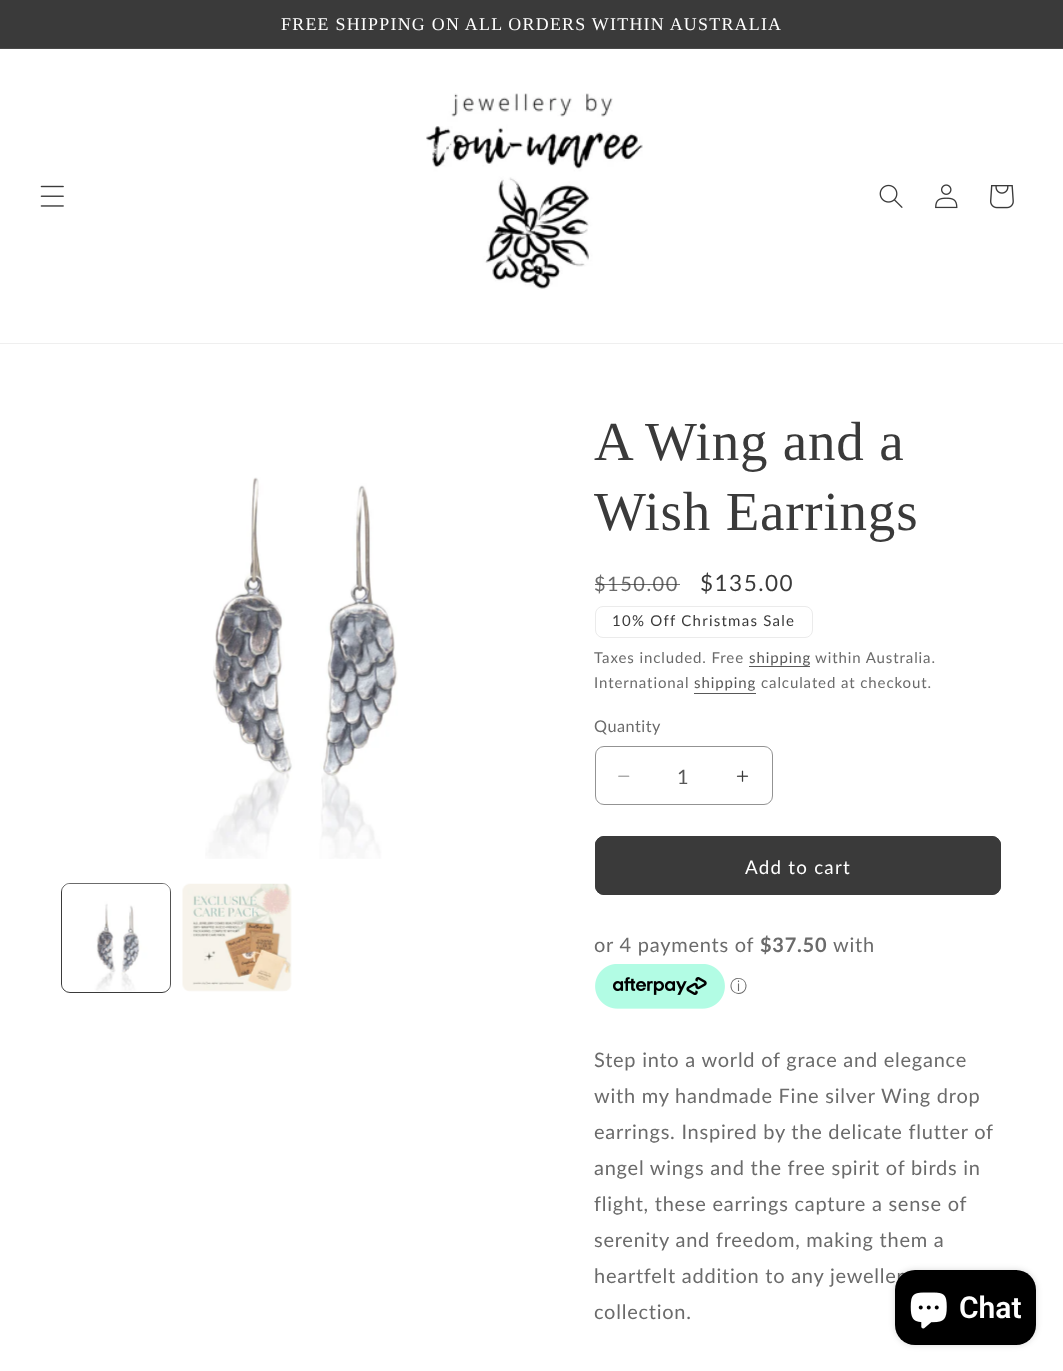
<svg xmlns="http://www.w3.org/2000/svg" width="1063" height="1371">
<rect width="100%" height="100%" fill="#fff"/>
<rect width="1063" height="48" fill="#3a3a3a"/>
<rect y="48" width="1063" height="1" fill="#4a4a4a"/>
<text x="281" y="30" style="font-family:Liberation Serif;font-size:17.9px;letter-spacing:1.25px;fill:#fff">FREE SHIPPING ON ALL ORDERS WITHIN AUSTRALIA</text>
<rect y="343" width="1063" height="1" fill="#efefef"/>
<image x="40" y="185" width="24" height="22" href="media/1.png"/>
<image x="426" y="93" width="217" height="197" href="media/2.png"/>
<image x="879" y="184" width="24" height="24" href="media/3.png"/>
<image x="935" y="184" width="23" height="25" href="media/4.png"/>
<image x="990" y="185" width="24" height="24" href="media/5.png"/>
<image x="205" y="477" width="193" height="382" href="media/6.png"/>
<rect x="61.5" y="883.5" width="109" height="109" rx="8.5" fill="none" stroke="#3a3a3a"/>
<image x="62" y="883" width="109" height="109" href="media/7.png"/>
<image x="182" y="883" width="110" height="109" href="media/8.png"/>
<text x="594" y="460" style="font-family:Liberation Serif;font-size:55px;letter-spacing:0.8px;fill:#3a3a3a">A Wing and a</text>
<text x="594" y="530" style="font-family:Liberation Serif;font-size:55px;letter-spacing:0.8px;fill:#3a3a3a">Wish Earrings</text>
<text x="594" y="591" style="font-family:Lato;font-size:20px;letter-spacing:1.5px;fill:#6b6b6b">$150.00</text>
<rect x="595" y="584" width="85" height="1" fill="#3a3a3abf"/>
<text x="700" y="591" style="font-family:Lato;font-size:22.5px;letter-spacing:1.5px;fill:#3a3a3a">$135.00</text>
<rect x="595.5" y="606.5" width="217" height="31" rx="7.5" fill="none" stroke="#ebebeb"/>
<text x="612" y="626" style="font-family:Lato;font-size:15px;letter-spacing:1.25px;fill:#3a3a3a">10% Off Christmas Sale</text>
<text x="594" y="663" style="font-family:Lato;font-size:15px;letter-spacing:0.9px;fill:#6b6b6b">Taxes included. Free</text>
<text x="749" y="663" style="font-family:Lato;font-size:15px;letter-spacing:0.9px;fill:#585858">shipping</text>
<rect x="749" y="666" width="61" height="1" fill="#585858"/>
<text x="815" y="663" style="font-family:Lato;font-size:15px;letter-spacing:0.9px;fill:#6b6b6b">within Australia.</text>
<text x="594" y="688" style="font-family:Lato;font-size:15px;letter-spacing:0.9px;fill:#6b6b6b">International</text>
<text x="694" y="688" style="font-family:Lato;font-size:15px;letter-spacing:0.9px;fill:#585858">shipping</text>
<rect x="694" y="693" width="62" height="1" fill="#585858"/>
<text x="761" y="688" style="font-family:Lato;font-size:15px;letter-spacing:0.9px;fill:#6b6b6b">calculated at checkout.</text>
<text x="594" y="732" style="font-family:Lato;font-size:16.25px;letter-spacing:0.5px;fill:#6b6b6b">Quantity</text>
<image x="618" y="775" width="12" height="2" href="media/9.png"/>
<image x="736" y="770" width="13" height="12" href="media/10.png"/>
<rect x="595.5" y="746.5" width="177" height="58" rx="8.5" fill="none" stroke="#939393"/>
<text x="677" y="784" style="font-family:Lato;font-size:20px;fill:#585858">1</text>
<rect x="595" y="836" width="406" height="59" rx="9" fill="#3a3a3a"/>
<rect x="595.5" y="836.5" width="405" height="58" rx="8.5" fill="none" stroke="#3a3a3a"/>
<text x="745" y="874" style="font-family:Lato;font-size:18.75px;letter-spacing:1.25px;fill:#fff">Add to cart</text>
<text x="594" y="952" style="font-family:Lato;font-size:20px;letter-spacing:0.75px;fill:#6b6b6b">or 4 payments of</text>
<text x="760" y="952" style="font-family:Lato;font-size:20px;font-weight:bold;letter-spacing:0.75px;fill:#6b6b6b">$37.50</text>
<text x="833" y="952" style="font-family:Lato;font-size:20px;letter-spacing:0.75px;fill:#6b6b6b">with</text>
<image x="595" y="964" width="130" height="45" href="media/11.png"/>
<text x="730" y="992" style="font-family:WenQuanYi Zen Hei;font-size:17px;font-weight:500;fill:#6b6b6b">ⓘ</text>
<text x="594" y="1067" style="font-family:Lato;font-size:20px;letter-spacing:0.75px;fill:#6b6b6b">Step into a world of grace and elegance</text>
<text x="594" y="1103" style="font-family:Lato;font-size:20px;letter-spacing:0.75px;fill:#6b6b6b">with my handmade Fine silver Wing drop</text>
<text x="594" y="1139" style="font-family:Lato;font-size:20px;letter-spacing:0.75px;fill:#6b6b6b">earrings. Inspired by the delicate flutter of</text>
<text x="594" y="1175" style="font-family:Lato;font-size:20px;letter-spacing:0.75px;fill:#6b6b6b">angel wings and the free spirit of birds in</text>
<text x="594" y="1211" style="font-family:Lato;font-size:20px;letter-spacing:0.75px;fill:#6b6b6b">flight, these earrings capture a sense of</text>
<text x="594" y="1247" style="font-family:Lato;font-size:20px;letter-spacing:0.75px;fill:#6b6b6b">serenity and freedom, making them a</text>
<text x="594" y="1283" style="font-family:Lato;font-size:20px;letter-spacing:0.75px;fill:#6b6b6b">heartfelt addition to any jeweller</text>
<text x="594" y="1319" style="font-family:Lato;font-size:20px;letter-spacing:0.75px;fill:#6b6b6b">collection.</text>
<rect x="895" y="1270" width="141" height="75" rx="20" fill="#00000026" filter="blur(3px)"/>
<rect x="895" y="1270" width="141" height="75" rx="20" fill="#000"/>
<image x="910" y="1292" width="37" height="37" href="media/12.png"/>
<text x="959" y="1318" style="font-family:Roboto;font-size:30px;font-weight:600;fill:#fff">Chat</text>
</svg>
